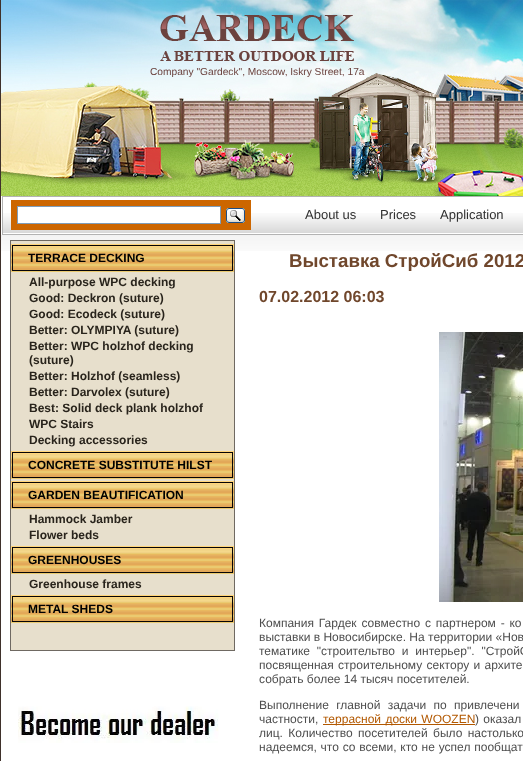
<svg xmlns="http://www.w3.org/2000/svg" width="523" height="761">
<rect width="100%" height="100%" fill="#fff"/>
<rect width="1" height="761" fill="#3f312b"/>
<image x="1" y="0" width="522" height="196" href="media/1.png"/>
<image x="160" y="15" width="194" height="46" href="media/2.png"/>
<text x="150" y="75" style="font-family:Liberation Sans;font-size:10.2px;fill:#6b423e">Company "Gardeck", Moscow, Iskry Street, 17a</text>
<image x="3" y="213" width="520" height="20" href="media/3.png"/>
<rect x="2.5" y="196.5" width="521" height="38" fill="none" stroke="#b3b3b3"/>
<rect x="11" y="200" width="240" height="30" fill="#c60"/>
<rect x="17.5" y="206.5" width="203" height="17" fill="#fff" stroke="#7f9db9"/>
<image x="226" y="208" width="19" height="15" href="media/4.png"/>
<text x="305" y="219" style="font-family:Liberation Sans;font-size:13px;fill:#303030">About us</text>
<text x="380" y="219" style="font-family:Liberation Sans;font-size:13px;fill:#303030">Prices</text>
<text x="440" y="219" style="font-family:Liberation Sans;font-size:13px;fill:#303030">Application</text>
<image x="1" y="235" width="522" height="16" href="media/5.png"/>
<rect x="10.5" y="240.5" width="224" height="410" fill="#e7dfcc" stroke="#6f6962"/>
<rect x="11" y="271" width="223" height="1" fill="#eaca70"/>
<image x="11" y="244" width="223" height="27" href="media/6.png"/>
<rect x="12.5" y="245.5" width="220" height="25" fill="none" stroke="#060406"/>
<text x="28" y="262" style="font-family:Liberation Sans;font-size:12px;font-weight:bold;fill:#000">TERRACE DECKING</text>
<text x="29" y="286" style="font-family:Liberation Sans;font-size:12px;font-weight:bold;fill:#29241c">All-purpose WPC decking</text>
<text x="29" y="302" style="font-family:Liberation Sans;font-size:12px;font-weight:bold;fill:#29241c">Good: Deckron (suture)</text>
<text x="29" y="318" style="font-family:Liberation Sans;font-size:12px;font-weight:bold;fill:#29241c">Good: Ecodeck (suture)</text>
<text x="29" y="334" style="font-family:Liberation Sans;font-size:12px;font-weight:bold;fill:#29241c">Better: OLYMPIYA (suture)</text>
<text x="29" y="350" style="font-family:Liberation Sans;font-size:12px;font-weight:bold;fill:#29241c">Better: WPC holzhof decking</text>
<text x="29" y="364" style="font-family:Liberation Sans;font-size:12px;font-weight:bold;fill:#29241c">(suture)</text>
<text x="29" y="380" style="font-family:Liberation Sans;font-size:12px;font-weight:bold;fill:#29241c">Better: Holzhof (seamless)</text>
<text x="29" y="396" style="font-family:Liberation Sans;font-size:12px;font-weight:bold;fill:#29241c">Better: Darvolex (suture)</text>
<text x="29" y="412" style="font-family:Liberation Sans;font-size:12px;font-weight:bold;fill:#29241c">Best: Solid deck plank holzhof</text>
<text x="29" y="428" style="font-family:Liberation Sans;font-size:12px;font-weight:bold;fill:#29241c">WPC Stairs</text>
<text x="29" y="444" style="font-family:Liberation Sans;font-size:12px;font-weight:bold;fill:#29241c">Decking accessories</text>
<rect x="11" y="478" width="223" height="1" fill="#eaca70"/>
<image x="11" y="451" width="223" height="27" href="media/6.png"/>
<rect x="12.5" y="452.5" width="220" height="25" fill="none" stroke="#060406"/>
<text x="28" y="469" style="font-family:Liberation Sans;font-size:12px;font-weight:bold;fill:#000">CONCRETE SUBSTITUTE HILST</text>
<rect x="11" y="508" width="223" height="1" fill="#eaca70"/>
<image x="11" y="481" width="223" height="27" href="media/6.png"/>
<rect x="12.5" y="482.5" width="220" height="25" fill="none" stroke="#060406"/>
<text x="28" y="499" style="font-family:Liberation Sans;font-size:12px;font-weight:bold;fill:#000">GARDEN BEAUTIFICATION</text>
<text x="29" y="523" style="font-family:Liberation Sans;font-size:12px;font-weight:bold;fill:#29241c">Hammock Jamber</text>
<text x="29" y="539" style="font-family:Liberation Sans;font-size:12px;font-weight:bold;fill:#29241c">Flower beds</text>
<rect x="11" y="573" width="223" height="1" fill="#eaca70"/>
<image x="11" y="546" width="223" height="27" href="media/6.png"/>
<rect x="12.5" y="547.5" width="220" height="25" fill="none" stroke="#060406"/>
<text x="28" y="564" style="font-family:Liberation Sans;font-size:12px;font-weight:bold;fill:#000">GREENHOUSES</text>
<text x="29" y="588" style="font-family:Liberation Sans;font-size:12px;font-weight:bold;fill:#29241c">Greenhouse frames</text>
<rect x="11" y="622" width="223" height="1" fill="#eaca70"/>
<image x="11" y="595" width="223" height="27" href="media/6.png"/>
<rect x="12.5" y="596.5" width="220" height="25" fill="none" stroke="#060406"/>
<text x="28" y="613" style="font-family:Liberation Sans;font-size:12px;font-weight:bold;fill:#000">METAL SHEDS</text>
<image x="18" y="706" width="201" height="37" href="media/7.png"/>
<text x="289" y="267" style="font-family:Liberation Sans;font-size:18.7px;font-weight:bold;fill:#70472c">Выставка СтройСиб 2012</text>
<text x="259" y="302" style="font-family:Liberation Sans;font-size:16px;font-weight:bold;fill:#70472c">07.02.2012 06:03</text>
<image x="439" y="332" width="84" height="270" href="media/8.png"/>
<text x="259" y="627" word-spacing="1.5" style="font-family:Liberation Sans;font-size:12px;fill:#4e4e4e">Компания Гардек совместно с партнером - ко</text>
<text x="259" y="641" style="font-family:Liberation Sans;font-size:12px;fill:#4e4e4e">выставки в Новосибирске. На территории «Нов</text>
<text x="259" y="655" word-spacing="3.5" style="font-family:Liberation Sans;font-size:12px;fill:#4e4e4e">тематике "строительтво и интерьер". "СтройС</text>
<text x="259" y="669" word-spacing="1" style="font-family:Liberation Sans;font-size:12px;fill:#4e4e4e">посвященная строительному сектору и архите</text>
<text x="259" y="683" style="font-family:Liberation Sans;font-size:12px;fill:#4e4e4e">собрать более 14 тысяч посетителей.</text>
<text x="259" y="709" word-spacing="4" style="font-family:Liberation Sans;font-size:12px;fill:#4e4e4e">Выполнение главной задачи по привлечени</text>
<text x="259" y="723" style="font-family:Liberation Sans;font-size:12px;fill:#4e4e4e">частности,</text>
<rect x="323" y="724" width="152" height="1" fill="#b25800"/>
<text x="323" y="723" word-spacing="1" style="font-family:Liberation Sans;font-size:12px;fill:#b25800">террасной доски WOOZEN</text>
<text x="475" y="723" word-spacing="1" style="font-family:Liberation Sans;font-size:12px;fill:#4e4e4e">) оказал</text>
<text x="259" y="737" word-spacing="2" style="font-family:Liberation Sans;font-size:12px;fill:#4e4e4e">лиц. Количество посетителей было настолько</text>
<text x="259" y="751" word-spacing="0.5" style="font-family:Liberation Sans;font-size:12px;fill:#4e4e4e">надеемся, что со всеми, кто не успел пообщат</text>
</svg>
